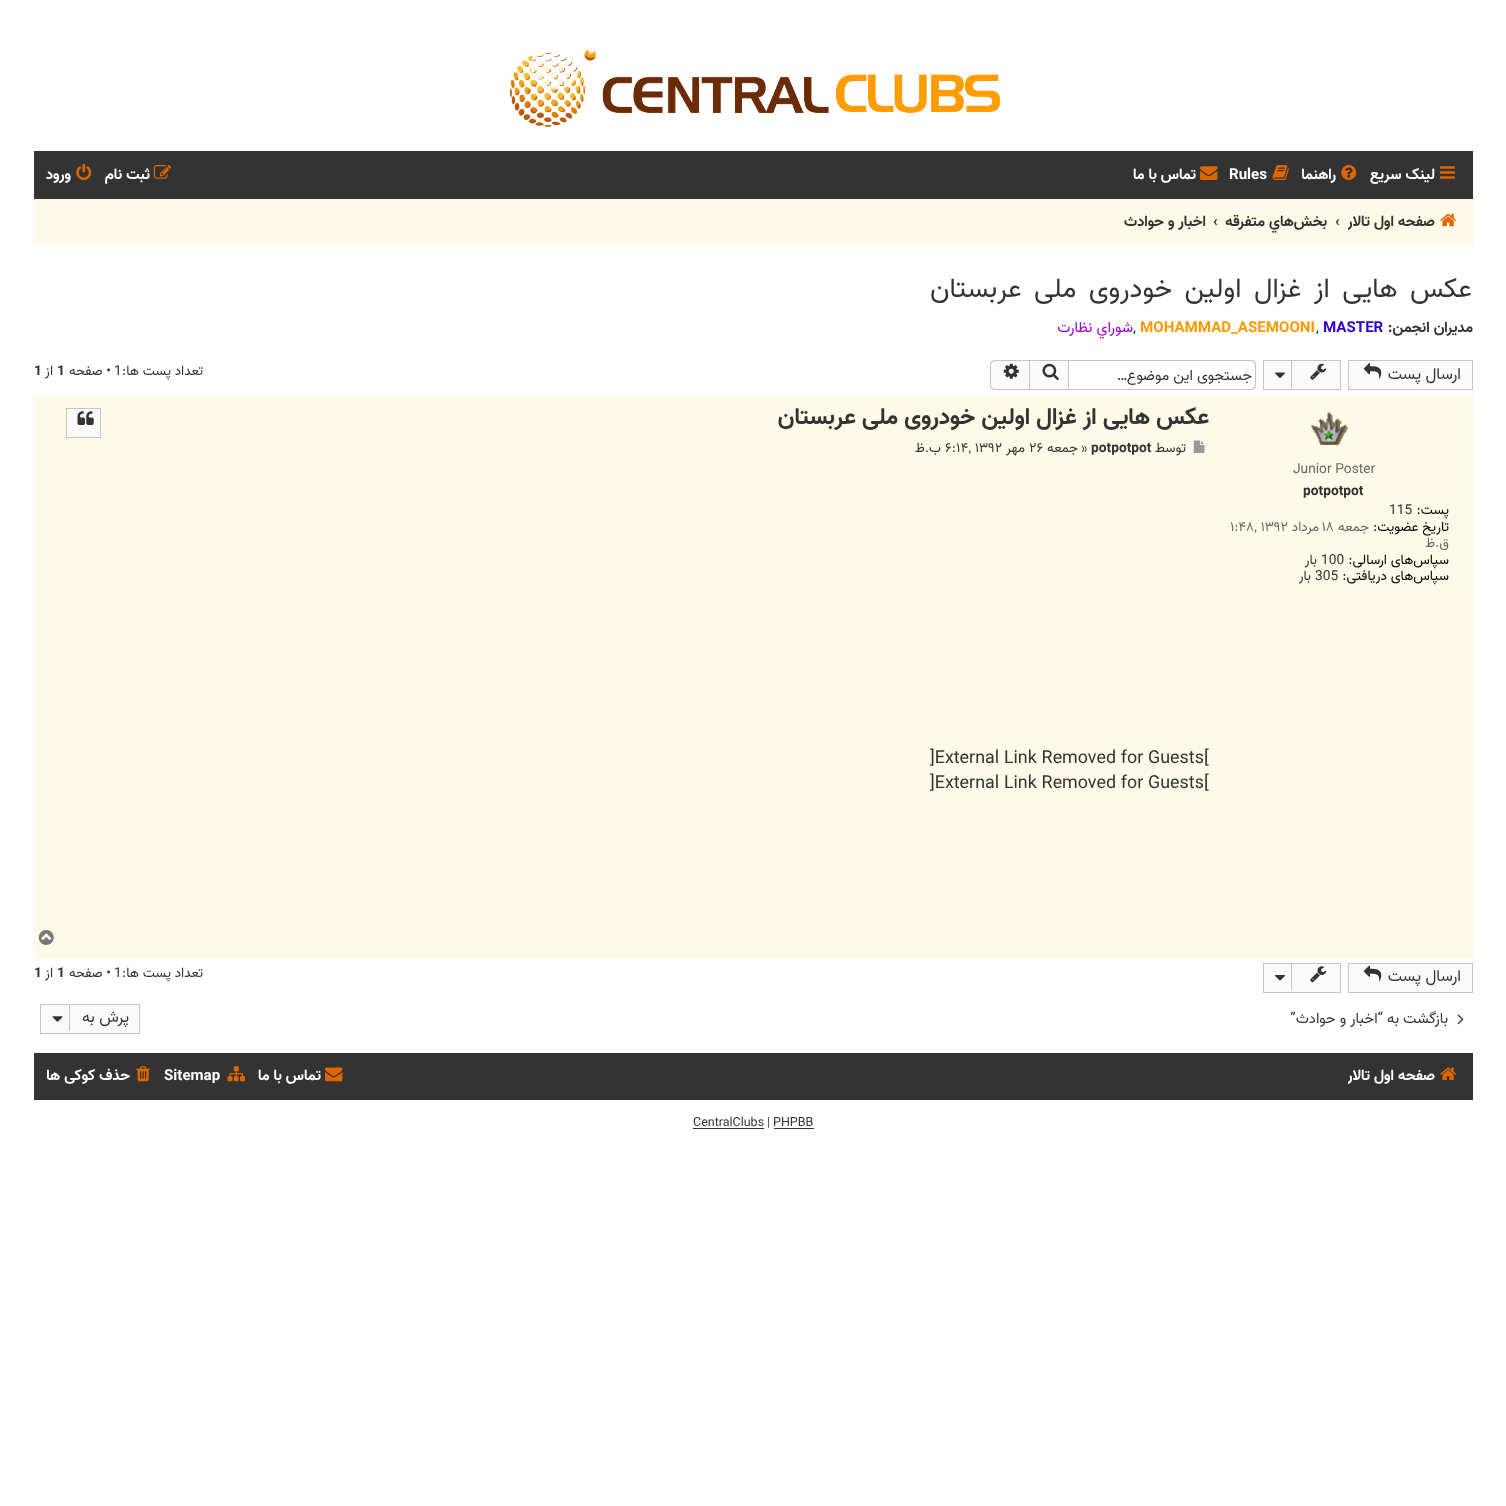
<svg xmlns="http://www.w3.org/2000/svg" width="1506" height="1506">
<defs>
<clipPath id="clip1"><rect x="1348" y="206" width="112" height="33"/></clipPath>
<clipPath id="clip2"><rect x="1348" y="1060" width="112" height="34"/></clipPath>
</defs>
<rect width="100%" height="100%" fill="#fff"/>
<image x="510" y="49" width="490" height="78" href="media/1.png"/>
<rect x="34" y="151" width="1439" height="48" fill="#333"/>
<image x="1440" y="166" width="15" height="13" href="media/2.png"/>
<text x="1435" y="179" style="font-family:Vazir;font-size:15.1px;font-weight:bold;direction:rtl;fill:#fff">لینک سریع</text>
<image x="1341" y="165" width="16" height="15" href="media/3.png"/>
<text x="1336" y="179" style="font-family:Vazir;font-size:15.1px;font-weight:bold;direction:rtl;fill:#fff">راهنما</text>
<image x="1272" y="165" width="17" height="15" href="media/4.png"/>
<text x="1229" y="179" style="font-family:Vazir;font-size:15.1px;font-weight:bold;fill:#fff">Rules</text>
<image x="1200" y="166" width="18" height="14" href="media/5.png"/>
<text x="1196" y="179" style="font-family:Vazir;font-size:15.1px;font-weight:bold;direction:rtl;fill:#fff">تماس با ما</text>
<image x="153" y="165" width="19" height="14" href="media/6.png"/>
<text x="150" y="179" style="font-family:Vazir;font-size:15.1px;font-weight:bold;direction:rtl;fill:#fff">ثبت نام</text>
<image x="76" y="163" width="16" height="17" href="media/7.png"/>
<text x="71" y="179" style="font-family:Vazir;font-size:15.1px;font-weight:bold;direction:rtl;fill:#fff">ورود</text>
<rect x="34" y="199" width="1439" height="46" fill="#fff9e7"/>
<image x="1440" y="213" width="16" height="14" href="media/8.png"/>
<g clip-path="url(#clip1)">
<text x="1435" y="226" style="font-family:Vazir;font-size:15.1px;font-weight:bold;direction:rtl;fill:#333">صفحه اول تالار</text>
</g>
<text x="1335" y="226" style="font-family:Vazir;font-size:15.1px;font-weight:bold;fill:#333">‹</text>
<text x="1327" y="226" style="font-family:Vazir;font-size:15.1px;font-weight:bold;direction:rtl;fill:#333">بخش‌‌هاي متفرقه</text>
<text x="1213" y="226" style="font-family:Vazir;font-size:15.1px;font-weight:bold;fill:#333">‹</text>
<text x="1206" y="226" style="font-family:Vazir;font-size:15.1px;font-weight:bold;direction:rtl;fill:#333">اخبار و حوادث</text>
<text x="1472" y="297" word-spacing="5" style="font-family:Vazir;font-size:27.5px;direction:rtl;fill:#333">عکس هایی از غزال اولین خودروی ملی عربستان</text>
<text x="1473" y="332" style="font-family:Vazir;font-size:15.1px;font-weight:bold;direction:rtl;fill:#333">مدیران انجمن:</text>
<text x="1323" y="332" style="font-family:Vazir;font-size:15.1px;font-weight:bold;fill:#30c">MASTER</text>
<text x="1316" y="332" style="font-family:Vazir;font-size:15.1px;fill:#333">,</text>
<text x="1140" y="332" style="font-family:Vazir;font-size:15.1px;font-weight:bold;fill:#f90">MOHAMMAD_ASEMOONI</text>
<text x="1133" y="332" style="font-family:Vazir;font-size:15.1px;fill:#333">,</text>
<text x="1133" y="332" style="font-family:Vazir;font-size:15.1px;direction:rtl;fill:#90c">شوراي نظارت</text>
<rect x="1348.5" y="360.5" width="124" height="29" fill="#fafafa" stroke="#c7c3bf"/>
<text x="1461" y="379" style="font-family:Vazir;font-size:16.25px;direction:rtl;fill:#333">ارسال پست</text>
<image x="1363" y="363" width="19" height="16" href="media/9.png"/>
<rect x="1263.5" y="360.5" width="77" height="29" fill="#fafafa" stroke="#c7c3bf"/>
<image x="1310" y="363" width="17" height="17" href="media/10.png"/>
<rect x="1291" y="361" width="1" height="27" fill="#c7c3bf"/>
<image x="1275" y="372" width="10" height="6" href="media/11.png"/>
<path d="M1069 360h182c3 0 5 2 5 5v20c0 3-2 5-5 5h-182zm0 1h182c2 0 4 2 4 4v20c0 2-2 4-4 4h-182z" fill="#c7c3bf" fill-rule="evenodd"/>
<text x="1252" y="380" style="font-family:Vazir;font-size:15.1px;direction:rtl;fill:#333">جستجوی این موضوع…</text>
<rect x="1029.5" y="360.5" width="39" height="29" fill="#fafafa" stroke="#c7c3bf"/>
<image x="1042" y="363" width="17" height="17" href="media/12.png"/>
<path d="M995 361h34v28h-34c-2 0-4-2-4-4v-20c0-2 2-4 4-4z" fill="#fafafa"/>
<path d="M995 360h34v30h-34c-3 0-5-2-5-5v-20c0-3 2-5 5-5zm0 1h34v28h-34c-2 0-4-2-4-4v-20c0-2 2-4 4-4z" fill="#c7c3bf" fill-rule="evenodd"/>
<image x="1003" y="363" width="16" height="16" href="media/13.png"/>
<text x="203" y="375" style="font-family:Vazir;font-size:13.75px;direction:rtl;fill:#333">تعداد پست ها:</text>
<text x="114" y="375" style="font-family:Vazir;font-size:13.75px;fill:#333">1</text>
<text x="111" y="375" style="font-family:Vazir;font-size:13.75px;direction:rtl;fill:#333">• صفحه</text>
<text x="57" y="375" style="font-family:Vazir;font-size:13.75px;font-weight:bold;fill:#333">1</text>
<text x="53" y="375" style="font-family:Vazir;font-size:13.75px;direction:rtl;fill:#333">از</text>
<text x="34" y="375" style="font-family:Vazir;font-size:13.75px;font-weight:bold;fill:#333">1</text>
<rect x="34" y="395" width="1439" height="563" fill="#fff9e7"/>
<rect x="1459" y="408" width="1" height="177" fill="#fff"/>
<image x="1311" y="412" width="37" height="33" href="media/14.png"/>
<text x="1293" y="473" style="font-family:Vazir;font-size:13.75px;fill:#666">Junior Poster</text>
<text x="1303" y="495" style="font-family:Vazir;font-size:13.75px;font-weight:bold;fill:#333">potpotpot</text>
<text x="1449" y="514" style="font-family:Vazir;font-size:13.75px;direction:rtl;fill:#000">پست:</text>
<text x="1389" y="514" style="font-family:Vazir;font-size:13.75px;fill:#333">115</text>
<text x="1449" y="531" style="font-family:Vazir;font-size:13.75px;direction:rtl;fill:#000">تاریخ عضویت:</text>
<text x="1369" y="531" style="font-family:Vazir;font-size:13.75px;direction:rtl;fill:#666">جمعه</text>
<text x="1322" y="531" style="font-family:Vazir;font-size:13.75px;fill:#666">۱۸</text>
<text x="1319" y="531" style="font-family:Vazir;font-size:13.75px;direction:rtl;fill:#666">مرداد</text>
<text x="1230" y="531" style="font-family:Vazir;font-size:13.75px;fill:#666">۱:۴۸, ۱۳۹۲</text>
<text x="1449" y="547" style="font-family:Vazir;font-size:13.75px;direction:rtl;fill:#666">ق.ظ</text>
<text x="1449" y="564" style="font-family:Vazir;font-size:13.75px;direction:rtl;fill:#000">سپاس‌های ارسالی:</text>
<text x="1321" y="564" style="font-family:Vazir;font-size:13.75px;fill:#333">100</text>
<text x="1317" y="564" style="font-family:Vazir;font-size:13.75px;direction:rtl;fill:#333">بار</text>
<text x="1449" y="580" style="font-family:Vazir;font-size:13.75px;direction:rtl;fill:#000">سپاس‌های دریافتی:</text>
<text x="1315" y="580" style="font-family:Vazir;font-size:13.75px;fill:#333">305</text>
<text x="1311" y="580" style="font-family:Vazir;font-size:13.75px;direction:rtl;fill:#333">بار</text>
<text x="1209" y="424" style="font-family:Vazir;font-size:23.4px;font-weight:bold;direction:rtl;fill:#333">عکس هایی از غزال اولین خودروی ملی عربستان</text>
<rect x="66.5" y="408.5" width="34" height="29" fill="#fafafa" stroke="#c7c3bf"/>
<image x="77" y="411" width="17" height="14" href="media/15.png"/>
<image x="1193" y="440" width="12" height="14" href="media/16.png"/>
<text x="1186" y="452" style="font-family:Vazir;font-size:13.75px;direction:rtl;fill:#333">توسط</text>
<text x="1091" y="452" style="font-family:Vazir;font-size:13.75px;font-weight:bold;fill:#333">potpotpot</text>
<text x="1081" y="452" style="font-family:Vazir;font-size:13.75px;fill:#333">»</text>
<text x="1078" y="452" style="font-family:Vazir;font-size:13.75px;direction:rtl;fill:#333">جمعه</text>
<text x="1029" y="452" style="font-family:Vazir;font-size:13.75px;fill:#333">۲۶</text>
<text x="1025" y="452" style="font-family:Vazir;font-size:13.75px;direction:rtl;fill:#333">مهر</text>
<text x="945" y="452" style="font-family:Vazir;font-size:13.75px;fill:#333">۶:۱۴, ۱۳۹۲</text>
<text x="941" y="452" style="font-family:Vazir;font-size:13.75px;direction:rtl;fill:#333">ب.ظ</text>
<text x="930" y="763" style="font-family:Vazir;font-size:17.9px;fill:#333">]External Link Removed for Guests[</text>
<text x="930" y="788" style="font-family:Vazir;font-size:17.9px;fill:#333">]External Link Removed for Guests[</text>
<image x="38" y="930" width="16" height="15" href="media/17.png"/>
<rect x="1348.5" y="963.5" width="124" height="29" fill="#fafafa" stroke="#c7c3bf"/>
<text x="1461" y="981" style="font-family:Vazir;font-size:16.25px;direction:rtl;fill:#333">ارسال پست</text>
<image x="1363" y="965" width="19" height="17" href="media/18.png"/>
<rect x="1263.5" y="963.5" width="77" height="29" fill="#fafafa" stroke="#c7c3bf"/>
<image x="1310" y="966" width="17" height="17" href="media/19.png"/>
<rect x="1291" y="964" width="1" height="26" fill="#c7c3bf"/>
<image x="1275" y="975" width="10" height="6" href="media/20.png"/>
<text x="203" y="977" style="font-family:Vazir;font-size:13.75px;direction:rtl;fill:#333">تعداد پست ها:</text>
<text x="114" y="977" style="font-family:Vazir;font-size:13.75px;fill:#333">1</text>
<text x="111" y="977" style="font-family:Vazir;font-size:13.75px;direction:rtl;fill:#333">• صفحه</text>
<text x="57" y="977" style="font-family:Vazir;font-size:13.75px;font-weight:bold;fill:#333">1</text>
<text x="53" y="977" style="font-family:Vazir;font-size:13.75px;direction:rtl;fill:#333">از</text>
<text x="34" y="977" style="font-family:Vazir;font-size:13.75px;font-weight:bold;fill:#333">1</text>
<image x="1457" y="1014" width="7" height="11" href="media/21.png"/>
<text x="1448" y="1023" style="font-family:Vazir;font-size:15.1px;direction:rtl;fill:#333">بازگشت به “اخبار و حوادث”</text>
<rect x="40.5" y="1004.5" width="99" height="29" fill="#fafafa" stroke="#c7c3bf"/>
<text x="129" y="1022" style="font-family:Vazir;font-size:16.25px;direction:rtl;fill:#333">پرش به</text>
<rect x="69" y="1005" width="1" height="26" fill="#c7c3bf"/>
<image x="52" y="1016" width="11" height="6" href="media/22.png"/>
<rect x="34" y="1053" width="1439" height="47" fill="#333"/>
<image x="1440" y="1067" width="16" height="13" href="media/23.png"/>
<g clip-path="url(#clip2)">
<text x="1435" y="1080" style="font-family:Vazir;font-size:15.1px;font-weight:bold;direction:rtl;fill:#fff">صفحه اول تالار</text>
</g>
<image x="325" y="1067" width="18" height="15" href="media/24.png"/>
<text x="321" y="1080" style="font-family:Vazir;font-size:15.1px;font-weight:bold;direction:rtl;fill:#fff">تماس با ما</text>
<image x="227" y="1066" width="18" height="16" href="media/25.png"/>
<text x="164" y="1080" style="font-family:Vazir;font-size:15.1px;font-weight:bold;fill:#fff">Sitemap</text>
<image x="136" y="1066" width="14" height="16" href="media/26.png"/>
<text x="130" y="1080" style="font-family:Vazir;font-size:15.1px;font-weight:bold;direction:rtl;fill:#fff">حذف کوکی ها</text>
<text x="773" y="1126" style="font-family:Vazir;font-size:12.5px;fill:#333">PHPBB</text>
<rect x="774" y="1128" width="40" height="1" fill="#333"/>
<text x="767" y="1126" style="font-family:Vazir;font-size:12.5px;fill:#555">|</text>
<text x="693" y="1126" style="font-family:Vazir;font-size:12.5px;fill:#333">CentralClubs</text>
<rect x="693" y="1128" width="71" height="1" fill="#333"/>
</svg>
